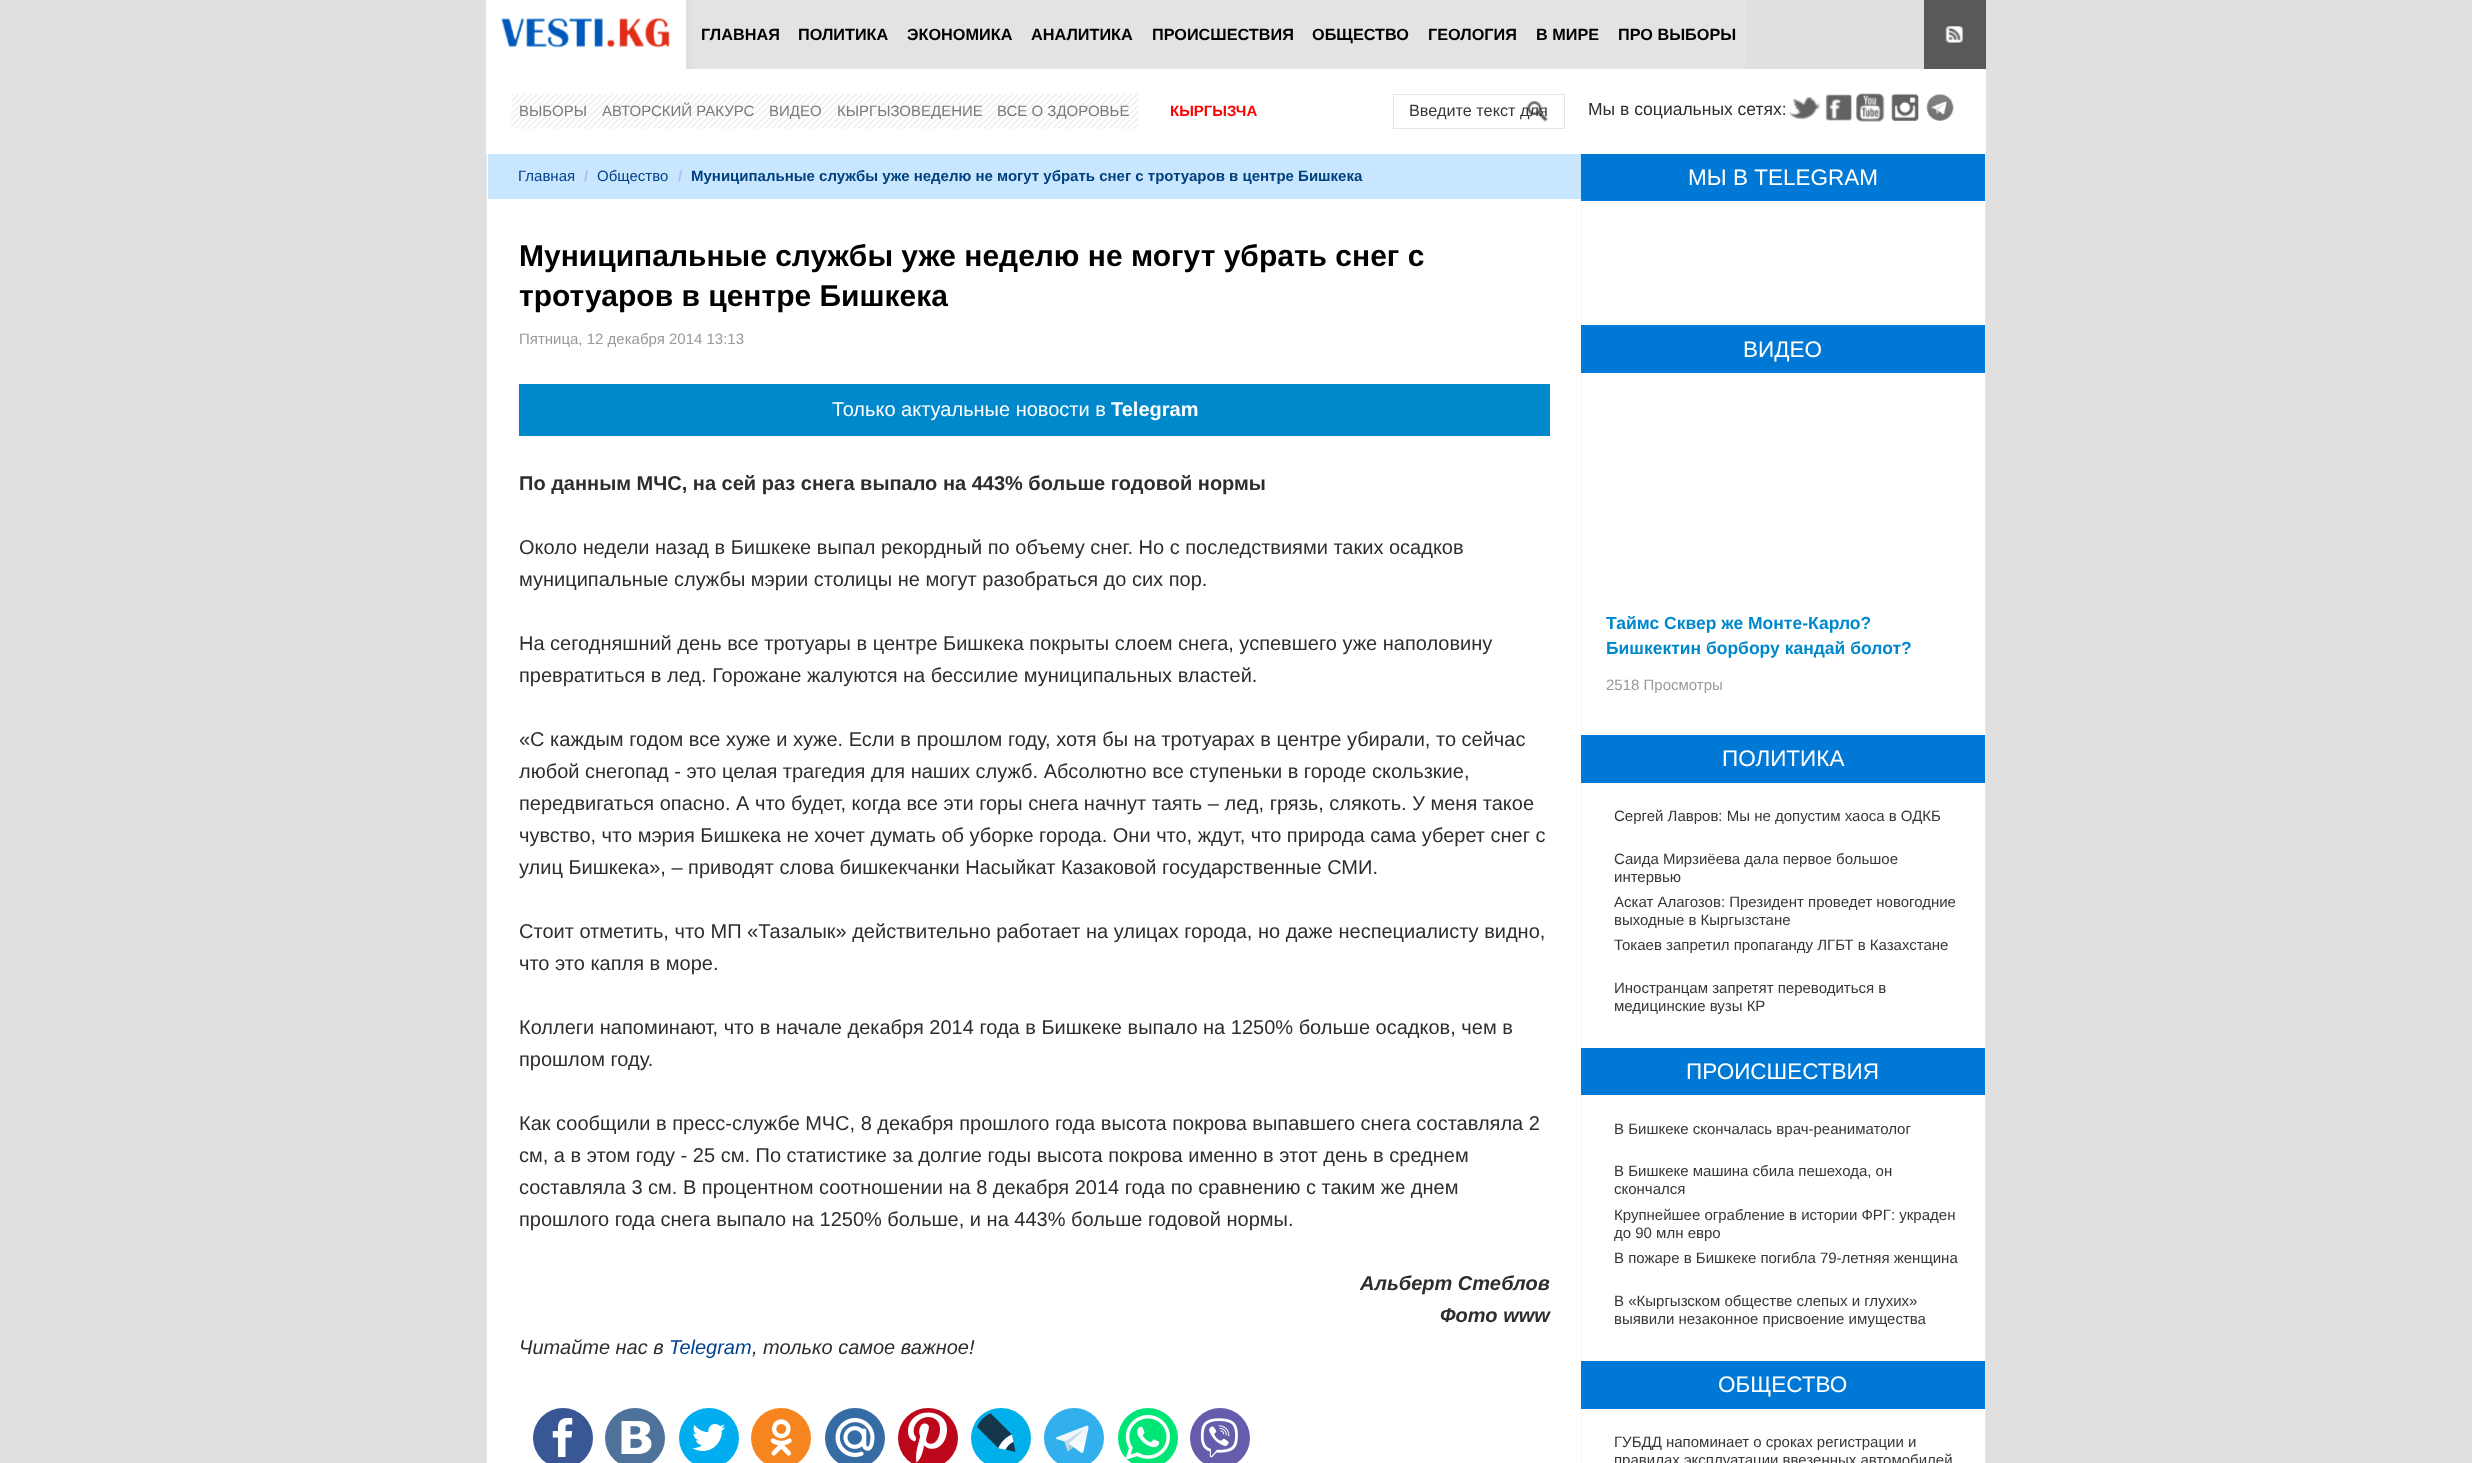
<svg xmlns="http://www.w3.org/2000/svg" width="2472" height="1463">
<rect width="100%" height="100%" fill="#e0e0e0"/>
<rect x="486" width="200" height="69" fill="#fff"/>
<image x="501" y="18" width="169" height="30" href="media/1.png"/>
<rect x="691" width="1055" height="69" fill="#e3e3e3"/>
<text x="701" y="40" style="font-family:Liberation Sans;font-size:16.25px;font-weight:bold;fill:#000">ГЛАВНАЯ</text>
<text x="798" y="40" style="font-family:Liberation Sans;font-size:16.25px;font-weight:bold;fill:#000">ПОЛИТИКА</text>
<text x="907" y="40" style="font-family:Liberation Sans;font-size:16.25px;font-weight:bold;fill:#000">ЭКОНОМИКА</text>
<text x="1031" y="40" style="font-family:Liberation Sans;font-size:16.25px;font-weight:bold;fill:#000">АНАЛИТИКА</text>
<text x="1152" y="40" style="font-family:Liberation Sans;font-size:16.25px;font-weight:bold;fill:#000">ПРОИСШЕСТВИЯ</text>
<text x="1312" y="40" style="font-family:Liberation Sans;font-size:16.25px;font-weight:bold;fill:#000">ОБЩЕСТВО</text>
<text x="1428" y="40" style="font-family:Liberation Sans;font-size:16.25px;font-weight:bold;fill:#000">ГЕОЛОГИЯ</text>
<text x="1536" y="40" style="font-family:Liberation Sans;font-size:16.25px;font-weight:bold;fill:#000">В МИРЕ</text>
<text x="1618" y="40" style="font-family:Liberation Sans;font-size:16.25px;font-weight:bold;fill:#000">ПРО ВЫБОРЫ</text>
<rect x="1924" width="62" height="69" fill="#595959"/>
<image x="1945" y="26" width="18" height="17" href="media/2.png"/>
<rect x="486" y="69" width="1500" height="85" fill="#fff"/>
<image x="511" y="93" width="754" height="36" href="media/3.png"/>
<text x="519" y="116" style="font-family:Liberation Sans;font-size:15px;fill:#7a7a7a">ВЫБОРЫ</text>
<text x="602" y="116" style="font-family:Liberation Sans;font-size:15px;fill:#7a7a7a">АВТОРСКИЙ РАКУРС</text>
<text x="769" y="116" style="font-family:Liberation Sans;font-size:15px;fill:#7a7a7a">ВИДЕО</text>
<text x="837" y="116" style="font-family:Liberation Sans;font-size:15px;fill:#7a7a7a">КЫРГЫЗОВЕДЕНИЕ</text>
<text x="997" y="116" style="font-family:Liberation Sans;font-size:15px;fill:#7a7a7a">ВСЕ О ЗДОРОВЬЕ</text>
<rect x="1138" y="94" width="127" height="35" fill="#fff"/>
<text x="1170" y="116" style="font-family:Liberation Sans;font-size:15px;font-weight:bold;fill:#f00">КЫРГЫЗЧА</text>
<image x="1527" y="101" width="21" height="21" href="media/4.png"/>
<rect x="1393.5" y="94.5" width="171" height="34" fill="none" stroke="#e5e5e5"/>
<text x="1409" y="116" style="font-family:Liberation Sans;font-size:16.25px;fill:#363636">Введите текст для</text>
<text x="1588" y="115" style="font-family:Liberation Sans;font-size:17.5px;fill:#2d2d2d">Мы в социальных сетях:</text>
<image x="1788" y="96" width="33" height="24" href="media/5.png"/>
<image x="1825" y="94" width="28" height="27" href="media/6.png"/>
<image x="1856" y="93" width="29" height="29" href="media/7.png"/>
<image x="1891" y="93" width="28" height="28" href="media/8.png"/>
<image x="1926" y="93" width="28" height="28" href="media/9.png"/>
<rect x="487" y="154" width="1498" height="1309" fill="#fff"/>
<image x="1580" y="153" width="2" height="1310" href="media/10.png"/>
<rect x="1985" y="154" width="1" height="1309" fill="#e5e5e5"/>
<rect x="486" y="154" width="1" height="1309" fill="#e5e5e5"/>
<rect x="1580" y="199" width="1" height="1264" fill="#fff"/>
<rect x="488" y="154" width="1093" height="45" fill="#c9e6ff"/>
<text x="518" y="181" style="font-family:Liberation Sans;font-size:15px;fill:#00428c">Главная</text>
<text x="584" y="181" style="font-family:Liberation Sans;font-size:15px;font-weight:bold;fill:#abbdff">/</text>
<text x="597" y="181" style="font-family:Liberation Sans;font-size:15px;fill:#00428c">Общество</text>
<text x="678" y="181" style="font-family:Liberation Sans;font-size:15px;font-weight:bold;fill:#abbdff">/</text>
<text x="691" y="181" style="font-family:Liberation Sans;font-size:15px;font-weight:bold;fill:#00407e">Муниципальные службы уже неделю не могут убрать снег с тротуаров в центре Бишкека</text>
<text x="519" y="266" style="font-family:Liberation Sans;font-size:30px;font-weight:bold;fill:#000">Муниципальные службы уже неделю не могут убрать снег с</text>
<text x="519" y="306" style="font-family:Liberation Sans;font-size:30px;font-weight:bold;fill:#000">тротуаров в центре Бишкека</text>
<text x="519" y="344" style="font-family:Liberation Sans;font-size:15px;fill:#999">Пятница, 12 декабря 2014 13:13</text>
<rect x="519" y="384" width="1031" height="52" fill="#08c"/>
<text x="832" y="416" style="font-family:Liberation Sans;font-size:20px;fill:#fff">Только актуальные новости в</text>
<text x="1111" y="416" style="font-family:Liberation Sans;font-size:20px;font-weight:bold;fill:#fff">Telegram</text>
<text x="519" y="490" style="font-family:Liberation Sans;font-size:20px;font-weight:bold;fill:#2d2d2d">По данным МЧС, на сей раз снега выпало на 443% больше годовой нормы</text>
<text x="519" y="554" style="font-family:Liberation Sans;font-size:20px;fill:#2d2d2d">Около недели назад в Бишкеке выпал рекордный по объему снег. Но с последствиями таких осадков</text>
<text x="519" y="586" style="font-family:Liberation Sans;font-size:20px;fill:#2d2d2d">муниципальные службы мэрии столицы не могут разобраться до сих пор.</text>
<text x="519" y="650" style="font-family:Liberation Sans;font-size:20px;fill:#2d2d2d">На сегодняшний день все тротуары в центре Бишкека покрыты слоем снега, успевшего уже наполовину</text>
<text x="519" y="682" style="font-family:Liberation Sans;font-size:20px;fill:#2d2d2d">превратиться в лед. Горожане жалуются на бессилие муниципальных властей.</text>
<text x="519" y="746" style="font-family:Liberation Sans;font-size:20px;fill:#2d2d2d">«С каждым годом все хуже и хуже. Если в прошлом году, хотя бы на тротуарах в центре убирали, то сейчас</text>
<text x="519" y="778" style="font-family:Liberation Sans;font-size:20px;fill:#2d2d2d">любой снегопад - это целая трагедия для наших служб. Абсолютно все ступеньки в городе скользкие,</text>
<text x="519" y="810" style="font-family:Liberation Sans;font-size:20px;fill:#2d2d2d">передвигаться опасно. А что будет, когда все эти горы снега начнут таять – лед, грязь, слякоть. У меня такое</text>
<text x="519" y="842" style="font-family:Liberation Sans;font-size:20px;fill:#2d2d2d">чувство, что мэрия Бишкека не хочет думать об уборке города. Они что, ждут, что природа сама уберет снег с</text>
<text x="519" y="874" style="font-family:Liberation Sans;font-size:20px;fill:#2d2d2d">улиц Бишкека», – приводят слова бишкекчанки Насыйкат Казаковой государственные СМИ.</text>
<text x="519" y="938" style="font-family:Liberation Sans;font-size:20px;fill:#2d2d2d">Стоит отметить, что МП «Тазалык» действительно работает на улицах города, но даже неспециалисту видно,</text>
<text x="519" y="970" style="font-family:Liberation Sans;font-size:20px;fill:#2d2d2d">что это капля в море.</text>
<text x="519" y="1034" style="font-family:Liberation Sans;font-size:20px;fill:#2d2d2d">Коллеги напоминают, что в начале декабря 2014 года в Бишкеке выпало на 1250% больше осадков, чем в</text>
<text x="519" y="1066" style="font-family:Liberation Sans;font-size:20px;fill:#2d2d2d">прошлом году.</text>
<text x="519" y="1130" style="font-family:Liberation Sans;font-size:20px;fill:#2d2d2d">Как сообщили в пресс-службе МЧС, 8 декабря прошлого года высота покрова выпавшего снега составляла 2</text>
<text x="519" y="1162" style="font-family:Liberation Sans;font-size:20px;fill:#2d2d2d">см, а в этом году - 25 см. По статистике за долгие годы высота покрова именно в этот день в среднем</text>
<text x="519" y="1194" style="font-family:Liberation Sans;font-size:20px;fill:#2d2d2d">составляла 3 см. В процентном соотношении на 8 декабря 2014 года по сравнению с таким же днем</text>
<text x="519" y="1226" style="font-family:Liberation Sans;font-size:20px;fill:#2d2d2d">прошлого года снега выпало на 1250% больше, и на 443% больше годовой нормы.</text>
<text x="1360" y="1290" style="font-family:Liberation Sans;font-size:20px;font-weight:bold;font-style:italic;fill:#2d2d2d">Альберт Стеблов</text>
<text x="1440" y="1322" style="font-family:Liberation Sans;font-size:20px;font-weight:bold;font-style:italic;fill:#2d2d2d">Фото www</text>
<text x="519" y="1354" style="font-family:Liberation Sans;font-size:20px;font-style:italic;fill:#2d2d2d">Читайте нас в</text>
<text x="669" y="1354" style="font-family:Liberation Sans;font-size:20px;font-style:italic;fill:#00428c">Telegram</text>
<text x="752" y="1354" style="font-family:Liberation Sans;font-size:20px;font-style:italic;fill:#2d2d2d">, только самое важное!</text>
<circle cx="563" cy="1438" r="30" fill="#3a5795"/>
<image x="552" y="1418" width="21" height="39" href="media/11.png"/>
<circle cx="635" cy="1438" r="30" fill="#4e7299"/>
<image x="621" y="1421" width="31" height="33" href="media/12.png"/>
<circle cx="709" cy="1438" r="30" fill="#00aeef"/>
<image x="692" y="1424" width="34" height="27" href="media/13.png"/>
<circle cx="781" cy="1438" r="30" fill="#f6851f"/>
<image x="770" y="1419" width="22" height="37" href="media/14.png"/>
<circle cx="855" cy="1438" r="30" fill="#356ca4"/>
<image x="835" y="1418" width="40" height="39" href="media/15.png"/>
<circle cx="928" cy="1438" r="30" fill="#bd081c"/>
<image x="908" y="1412" width="39" height="51" href="media/16.png"/>
<circle cx="1001" cy="1438" r="30" fill="#00b0ea"/>
<image x="974" y="1411" width="42" height="41" href="media/17.png"/>
<circle cx="1074" cy="1438" r="30" fill="#32afed"/>
<image x="1056" y="1425" width="33" height="28" href="media/18.png"/>
<circle cx="1148" cy="1438" r="30" fill="#00e676"/>
<image x="1125" y="1415" width="45" height="45" href="media/19.png"/>
<circle cx="1220" cy="1438" r="30" fill="#665cac"/>
<image x="1200" y="1418" width="38" height="40" href="media/20.png"/>
<rect x="1581" y="154" width="404" height="47" fill="#0079d6"/>
<text x="1688" y="185" style="font-family:Liberation Sans;font-size:22.5px;fill:#fff">МЫ В TELEGRAM</text>
<rect x="1581" y="325" width="404" height="48" fill="#0079d6"/>
<text x="1743" y="357" style="font-family:Liberation Sans;font-size:22.5px;fill:#fff">ВИДЕО</text>
<text x="1606" y="629" style="font-family:Liberation Sans;font-size:17.5px;font-weight:bold;fill:#08c">Таймс Сквер же Монте-Карло?</text>
<text x="1606" y="654" style="font-family:Liberation Sans;font-size:17.5px;font-weight:bold;fill:#08c">Бишкектин борбору кандай болот?</text>
<text x="1606" y="690" style="font-family:Liberation Sans;font-size:15px;fill:#999">2518 Просмотры</text>
<rect x="1581" y="735" width="404" height="48" fill="#0079d6"/>
<text x="1722" y="766" style="font-family:Liberation Sans;font-size:22.5px;fill:#fff">ПОЛИТИКА</text>
<text x="1614" y="821" style="font-family:Liberation Sans;font-size:15px;fill:#363636">Сергей Лавров: Мы не допустим хаоса в ОДКБ</text>
<text x="1614" y="864" style="font-family:Liberation Sans;font-size:15px;fill:#363636">Саида Мирзиёева дала первое большое</text>
<text x="1614" y="882" style="font-family:Liberation Sans;font-size:15px;fill:#363636">интервью</text>
<text x="1614" y="907" style="font-family:Liberation Sans;font-size:15px;fill:#363636">Аскат Алагозов: Президент проведет новогодние</text>
<text x="1614" y="925" style="font-family:Liberation Sans;font-size:15px;fill:#363636">выходные в Кыргызстане</text>
<text x="1614" y="950" style="font-family:Liberation Sans;font-size:15px;fill:#363636">Токаев запретил пропаганду ЛГБТ в Казахстане</text>
<text x="1614" y="993" style="font-family:Liberation Sans;font-size:15px;fill:#363636">Иностранцам запретят переводиться в</text>
<text x="1614" y="1011" style="font-family:Liberation Sans;font-size:15px;fill:#363636">медицинские вузы КР</text>
<rect x="1581" y="1048" width="404" height="47" fill="#0079d6"/>
<text x="1686" y="1079" style="font-family:Liberation Sans;font-size:22.5px;fill:#fff">ПРОИСШЕСТВИЯ</text>
<text x="1614" y="1134" style="font-family:Liberation Sans;font-size:15px;fill:#363636">В Бишкеке скончалась врач-реаниматолог</text>
<text x="1614" y="1176" style="font-family:Liberation Sans;font-size:15px;fill:#363636">В Бишкеке машина сбила пешехода, он</text>
<text x="1614" y="1194" style="font-family:Liberation Sans;font-size:15px;fill:#363636">скончался</text>
<text x="1614" y="1220" style="font-family:Liberation Sans;font-size:15px;fill:#363636">Крупнейшее ограбление в истории ФРГ: украден</text>
<text x="1614" y="1238" style="font-family:Liberation Sans;font-size:15px;fill:#363636">до 90 млн евро</text>
<text x="1614" y="1263" style="font-family:Liberation Sans;font-size:15px;fill:#363636">В пожаре в Бишкеке погибла 79-летняя женщина</text>
<text x="1614" y="1306" style="font-family:Liberation Sans;font-size:15px;fill:#363636">В «Кыргызском обществе слепых и глухих»</text>
<text x="1614" y="1324" style="font-family:Liberation Sans;font-size:15px;fill:#363636">выявили незаконное присвоение имущества</text>
<rect x="1581" y="1361" width="404" height="48" fill="#0079d6"/>
<text x="1718" y="1392" style="font-family:Liberation Sans;font-size:22.5px;fill:#fff">ОБЩЕСТВО</text>
<text x="1614" y="1447" style="font-family:Liberation Sans;font-size:15px;fill:#363636">ГУБДД напоминает о сроках регистрации и</text>
<text x="1614" y="1465" style="font-family:Liberation Sans;font-size:15px;fill:#363636">правилах эксплуатации ввезенных автомобилей</text>
</svg>
